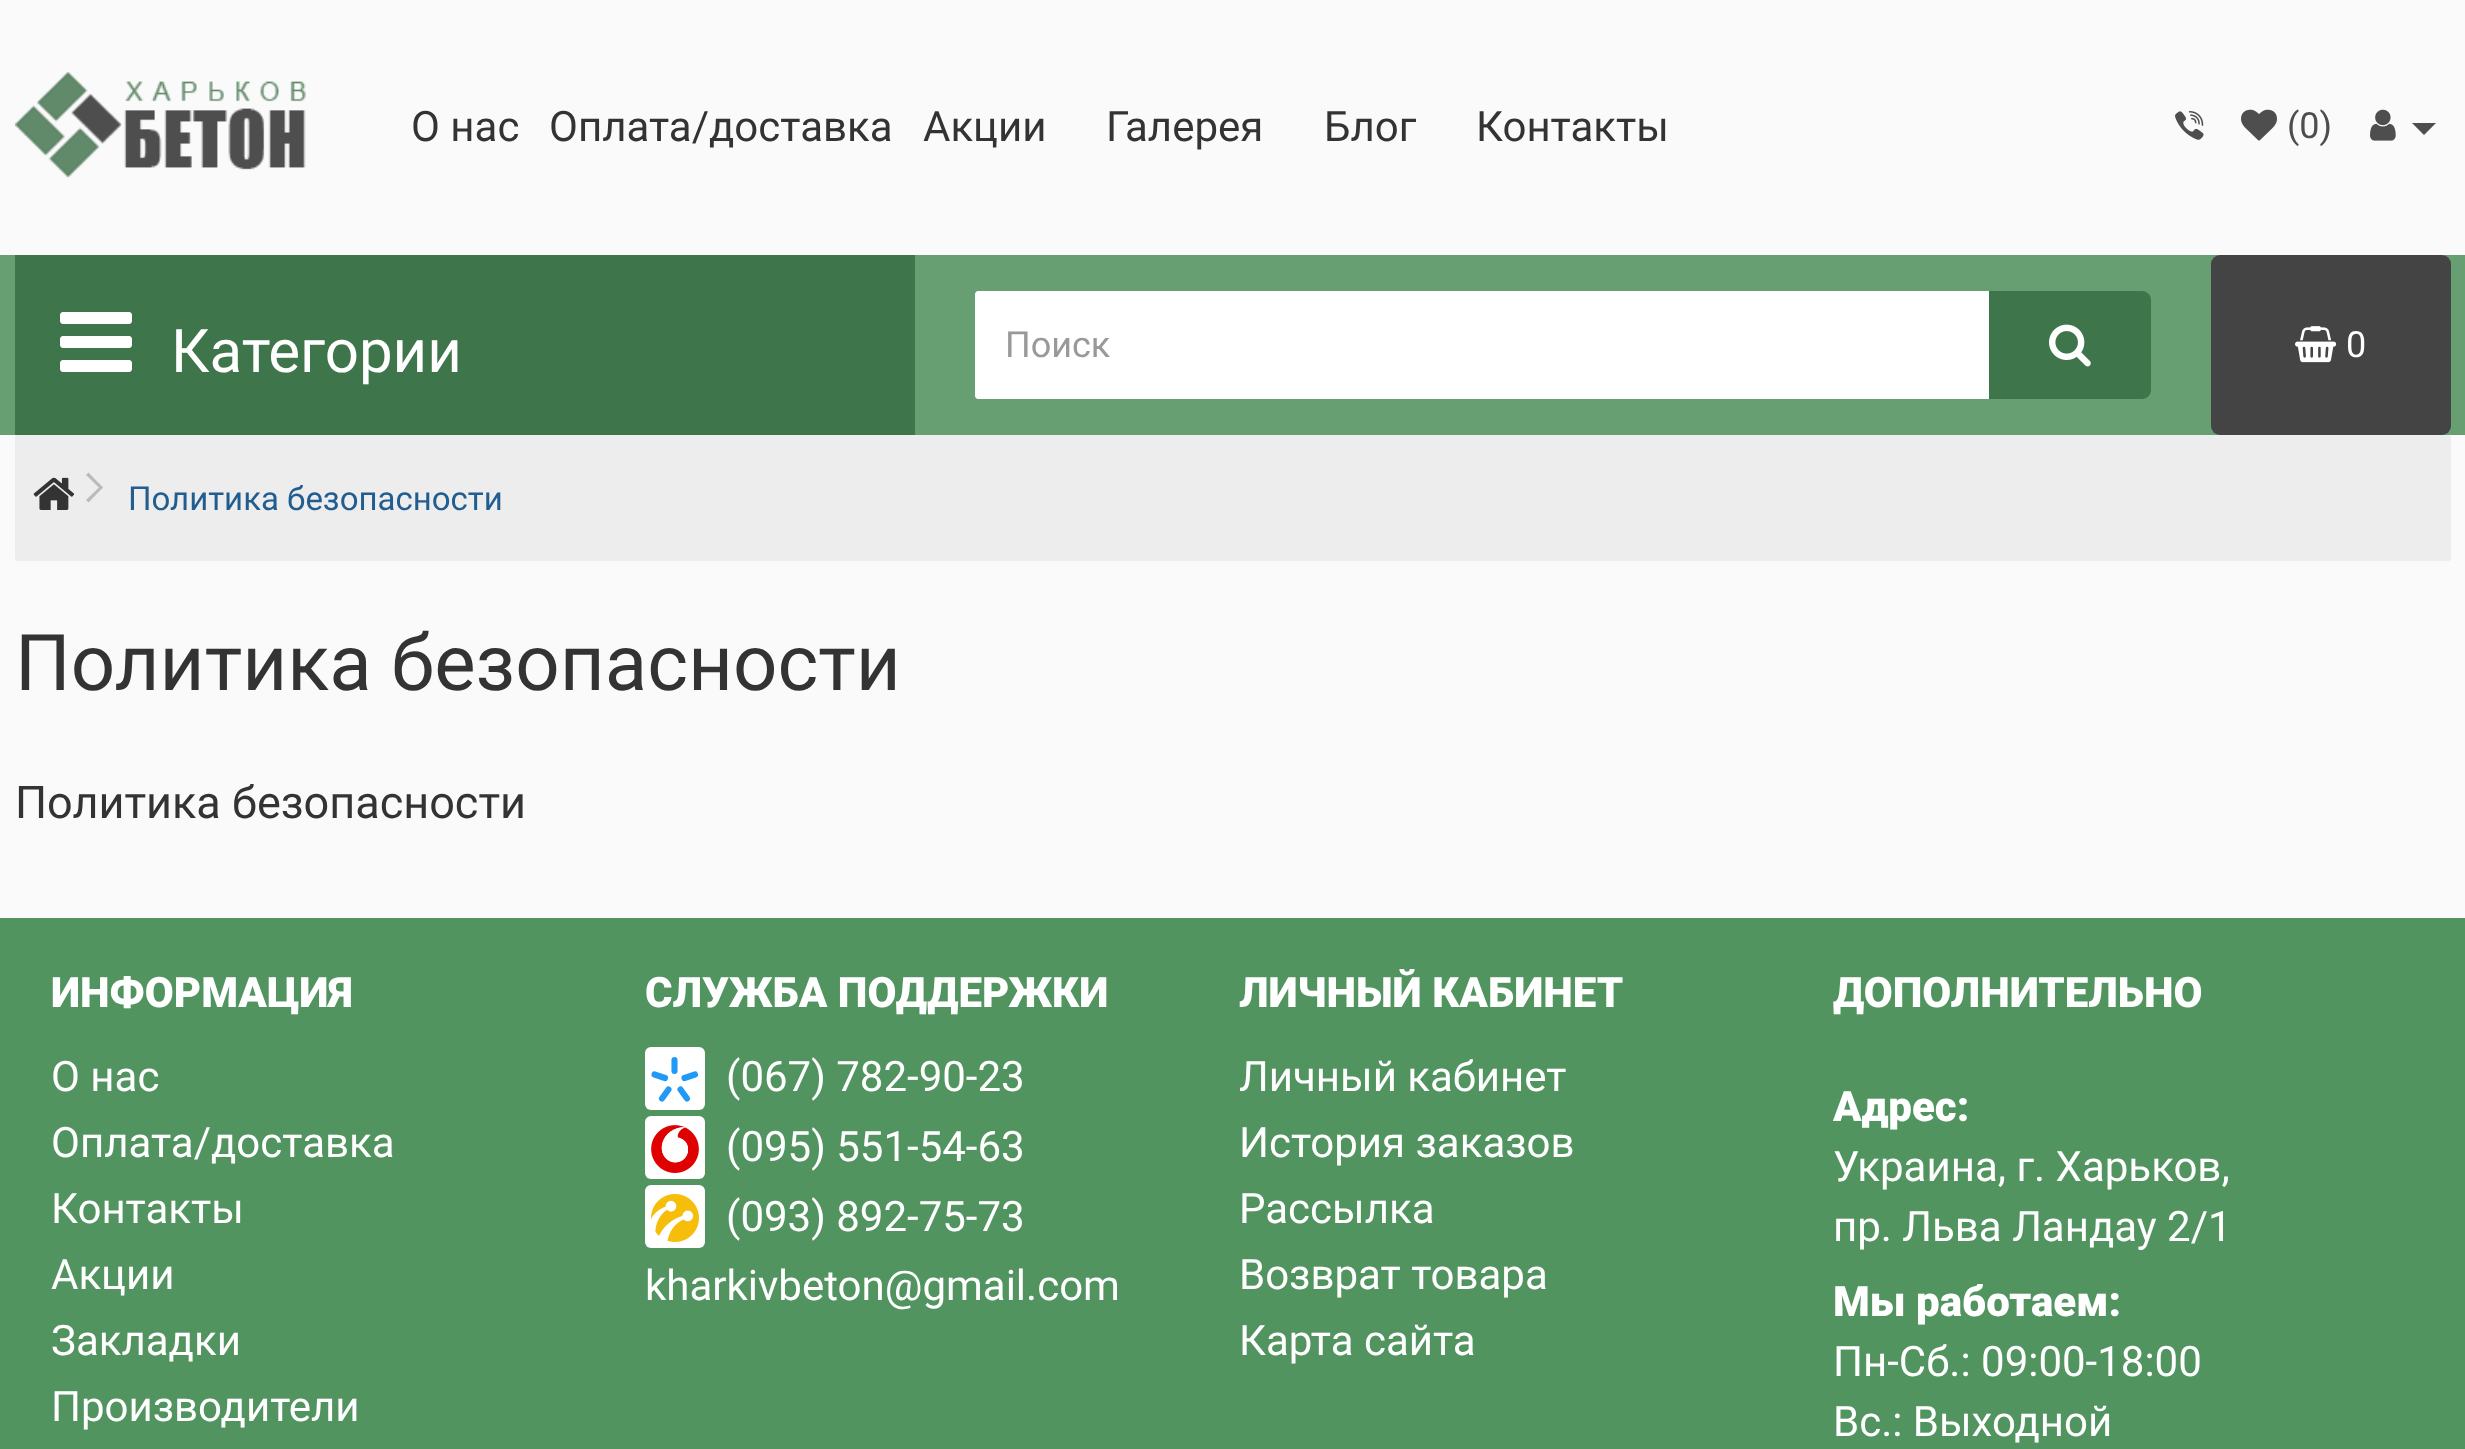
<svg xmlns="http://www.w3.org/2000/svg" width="2465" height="1449">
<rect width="100%" height="100%" fill="#fafafa"/>
<image x="15" y="71" width="291" height="107" href="media/1.png"/>
<text x="411" y="141" style="font-family:Roboto;font-size:42px;fill:#333">О нас</text>
<text x="549" y="141" style="font-family:Roboto;font-size:42px;fill:#333">Оплата/доставка</text>
<text x="923" y="141" style="font-family:Roboto;font-size:42px;fill:#333">Акции</text>
<text x="1106" y="141" style="font-family:Roboto;font-size:42px;fill:#333">Галерея</text>
<text x="1324" y="141" style="font-family:Roboto;font-size:42px;fill:#333">Блог</text>
<text x="1476" y="141" style="font-family:Roboto;font-size:42px;fill:#333">Контакты</text>
<image x="2175" y="111" width="29" height="29" href="media/2.png"/>
<image x="2241" y="109" width="36" height="32" href="media/3.png"/>
<text x="2287" y="138" style="font-family:Roboto;font-size:36px;fill:#4e4e4e">(0)</text>
<image x="2370" y="109" width="26" height="32" href="media/4.png"/>
<path d="M2412 123h24l-12 12z" fill="#4e4e4e"/>
<rect y="255" width="2465" height="180" fill="#679f73"/>
<rect x="15" y="255" width="900" height="180" fill="#3f754b"/>
<image x="60" y="312" width="72" height="60" href="media/5.png"/>
<text x="171" y="372" style="font-family:Roboto;font-size:60px;fill:#fff">Категории</text>
<path d="M978 291h1014v108h-1014c-1.5 0-3-1.5-3-3v-102c0-1.5 1.5-3 3-3z" fill="#fff"/>
<text x="1005" y="357" style="font-family:Roboto;font-size:36px;fill:#999">Поиск</text>
<path d="M1989 291h153c5 0 9 4 9 9v90c0 5-4 9-9 9h-153z" fill="#3f754b"/>
<image x="2049" y="324" width="42" height="43" href="media/6.png"/>
<rect x="2211" y="255" width="240" height="180" rx="9" fill="#444"/>
<image x="2295" y="326" width="42" height="37" href="media/7.png"/>
<text x="2346" y="357" style="font-family:Roboto;font-size:36px;fill:#fff">0</text>
<rect x="15" y="435" width="2436" height="126" rx="3" fill="#ededed"/>
<image x="33" y="477" width="42" height="33" href="media/8.png"/>
<path d="M86 475l2.5-2.5l14.5 15l-2 2z" fill="#bbb"/>
<path d="M86 500l15-14.5l2 2l-14.5 15z" fill="#bbb"/>
<text x="128" y="510" style="font-family:Roboto;font-size:33px;fill:#225d90">Политика безопасности</text>
<text x="15" y="690" style="font-family:Roboto;font-size:78px;fill:#333">Политика безопасности</text>
<text x="15" y="818" style="font-family:Roboto;font-size:45px;fill:#333">Политика безопасности</text>
<rect y="918" width="2465" height="531" fill="#519460"/>
<text x="51" y="1007" style="font-family:Roboto;font-size:42px;font-weight:900;fill:#fff">ИНФОРМАЦИЯ</text>
<text x="51" y="1091" style="font-family:Roboto;font-size:42px;fill:#fff">О нас</text>
<text x="51" y="1157" style="font-family:Roboto;font-size:42px;fill:#fff">Оплата/доставка</text>
<text x="51" y="1223" style="font-family:Roboto;font-size:42px;fill:#fff">Контакты</text>
<text x="51" y="1289" style="font-family:Roboto;font-size:42px;fill:#fff">Акции</text>
<text x="51" y="1355" style="font-family:Roboto;font-size:42px;fill:#fff">Закладки</text>
<text x="51" y="1421" style="font-family:Roboto;font-size:42px;fill:#fff">Производители</text>
<text x="645" y="1007" style="font-family:Roboto;font-size:42px;font-weight:900;fill:#fff">СЛУЖБА ПОДДЕРЖКИ</text>
<rect x="645" y="1047" width="60" height="63" rx="6" fill="#fff"/>
<path d="M674.5 1060v11m20.5 3.5l-10.5 3.5m2.5 20.5l-6.5-9m-18.5 9l6.5-9m-14-15l10.5 3.5" fill="none" stroke="#219af7" stroke-width="6.1" stroke-linecap="round"/>
<text x="726" y="1091" style="font-family:Roboto;font-size:42px;fill:#fff">(067) 782-90-23</text>
<rect x="645" y="1116" width="60" height="63" rx="6" fill="#fff"/>
<image x="651" y="1125" width="48" height="48" href="media/9.png"/>
<text x="726" y="1161" style="font-family:Roboto;font-size:42px;fill:#fff">(095) 551-54-63</text>
<rect x="645" y="1185" width="60" height="63" rx="6" fill="#fff"/>
<image x="651" y="1194" width="48" height="48" href="media/10.png"/>
<text x="726" y="1231" style="font-family:Roboto;font-size:42px;fill:#fff">(093) 892-75-73</text>
<text x="645" y="1300" style="font-family:Roboto;font-size:42px;fill:#fff">kharkivbeton@gmail.com</text>
<text x="1239" y="1007" style="font-family:Roboto;font-size:42px;font-weight:900;fill:#fff">ЛИЧНЫЙ КАБИНЕТ</text>
<text x="1239" y="1091" style="font-family:Roboto;font-size:42px;fill:#fff">Личный кабинет</text>
<text x="1239" y="1157" style="font-family:Roboto;font-size:42px;fill:#fff">История заказов</text>
<text x="1239" y="1223" style="font-family:Roboto;font-size:42px;fill:#fff">Рассылка</text>
<text x="1239" y="1289" style="font-family:Roboto;font-size:42px;fill:#fff">Возврат товара</text>
<text x="1239" y="1355" style="font-family:Roboto;font-size:42px;fill:#fff">Карта сайта</text>
<text x="1833" y="1007" style="font-family:Roboto;font-size:42px;font-weight:900;fill:#fff">ДОПОЛНИТЕЛЬНО</text>
<text x="1833" y="1121" style="font-family:Roboto;font-size:42px;font-weight:900;fill:#fff">Адрес:</text>
<text x="1833" y="1181" style="font-family:Roboto;font-size:42px;fill:#fff">Украина, г. Харьков,</text>
<text x="1833" y="1241" style="font-family:Roboto;font-size:42px;fill:#fff">пр. Льва Ландау 2/1</text>
<text x="1833" y="1316" style="font-family:Roboto;font-size:42px;font-weight:900;fill:#fff">Мы работаем:</text>
<text x="1833" y="1376" style="font-family:Roboto;font-size:42px;fill:#fff">Пн-Сб.: 09:00-18:00</text>
<text x="1833" y="1436" style="font-family:Roboto;font-size:42px;fill:#fff">Вс.: Выходной</text>
</svg>
